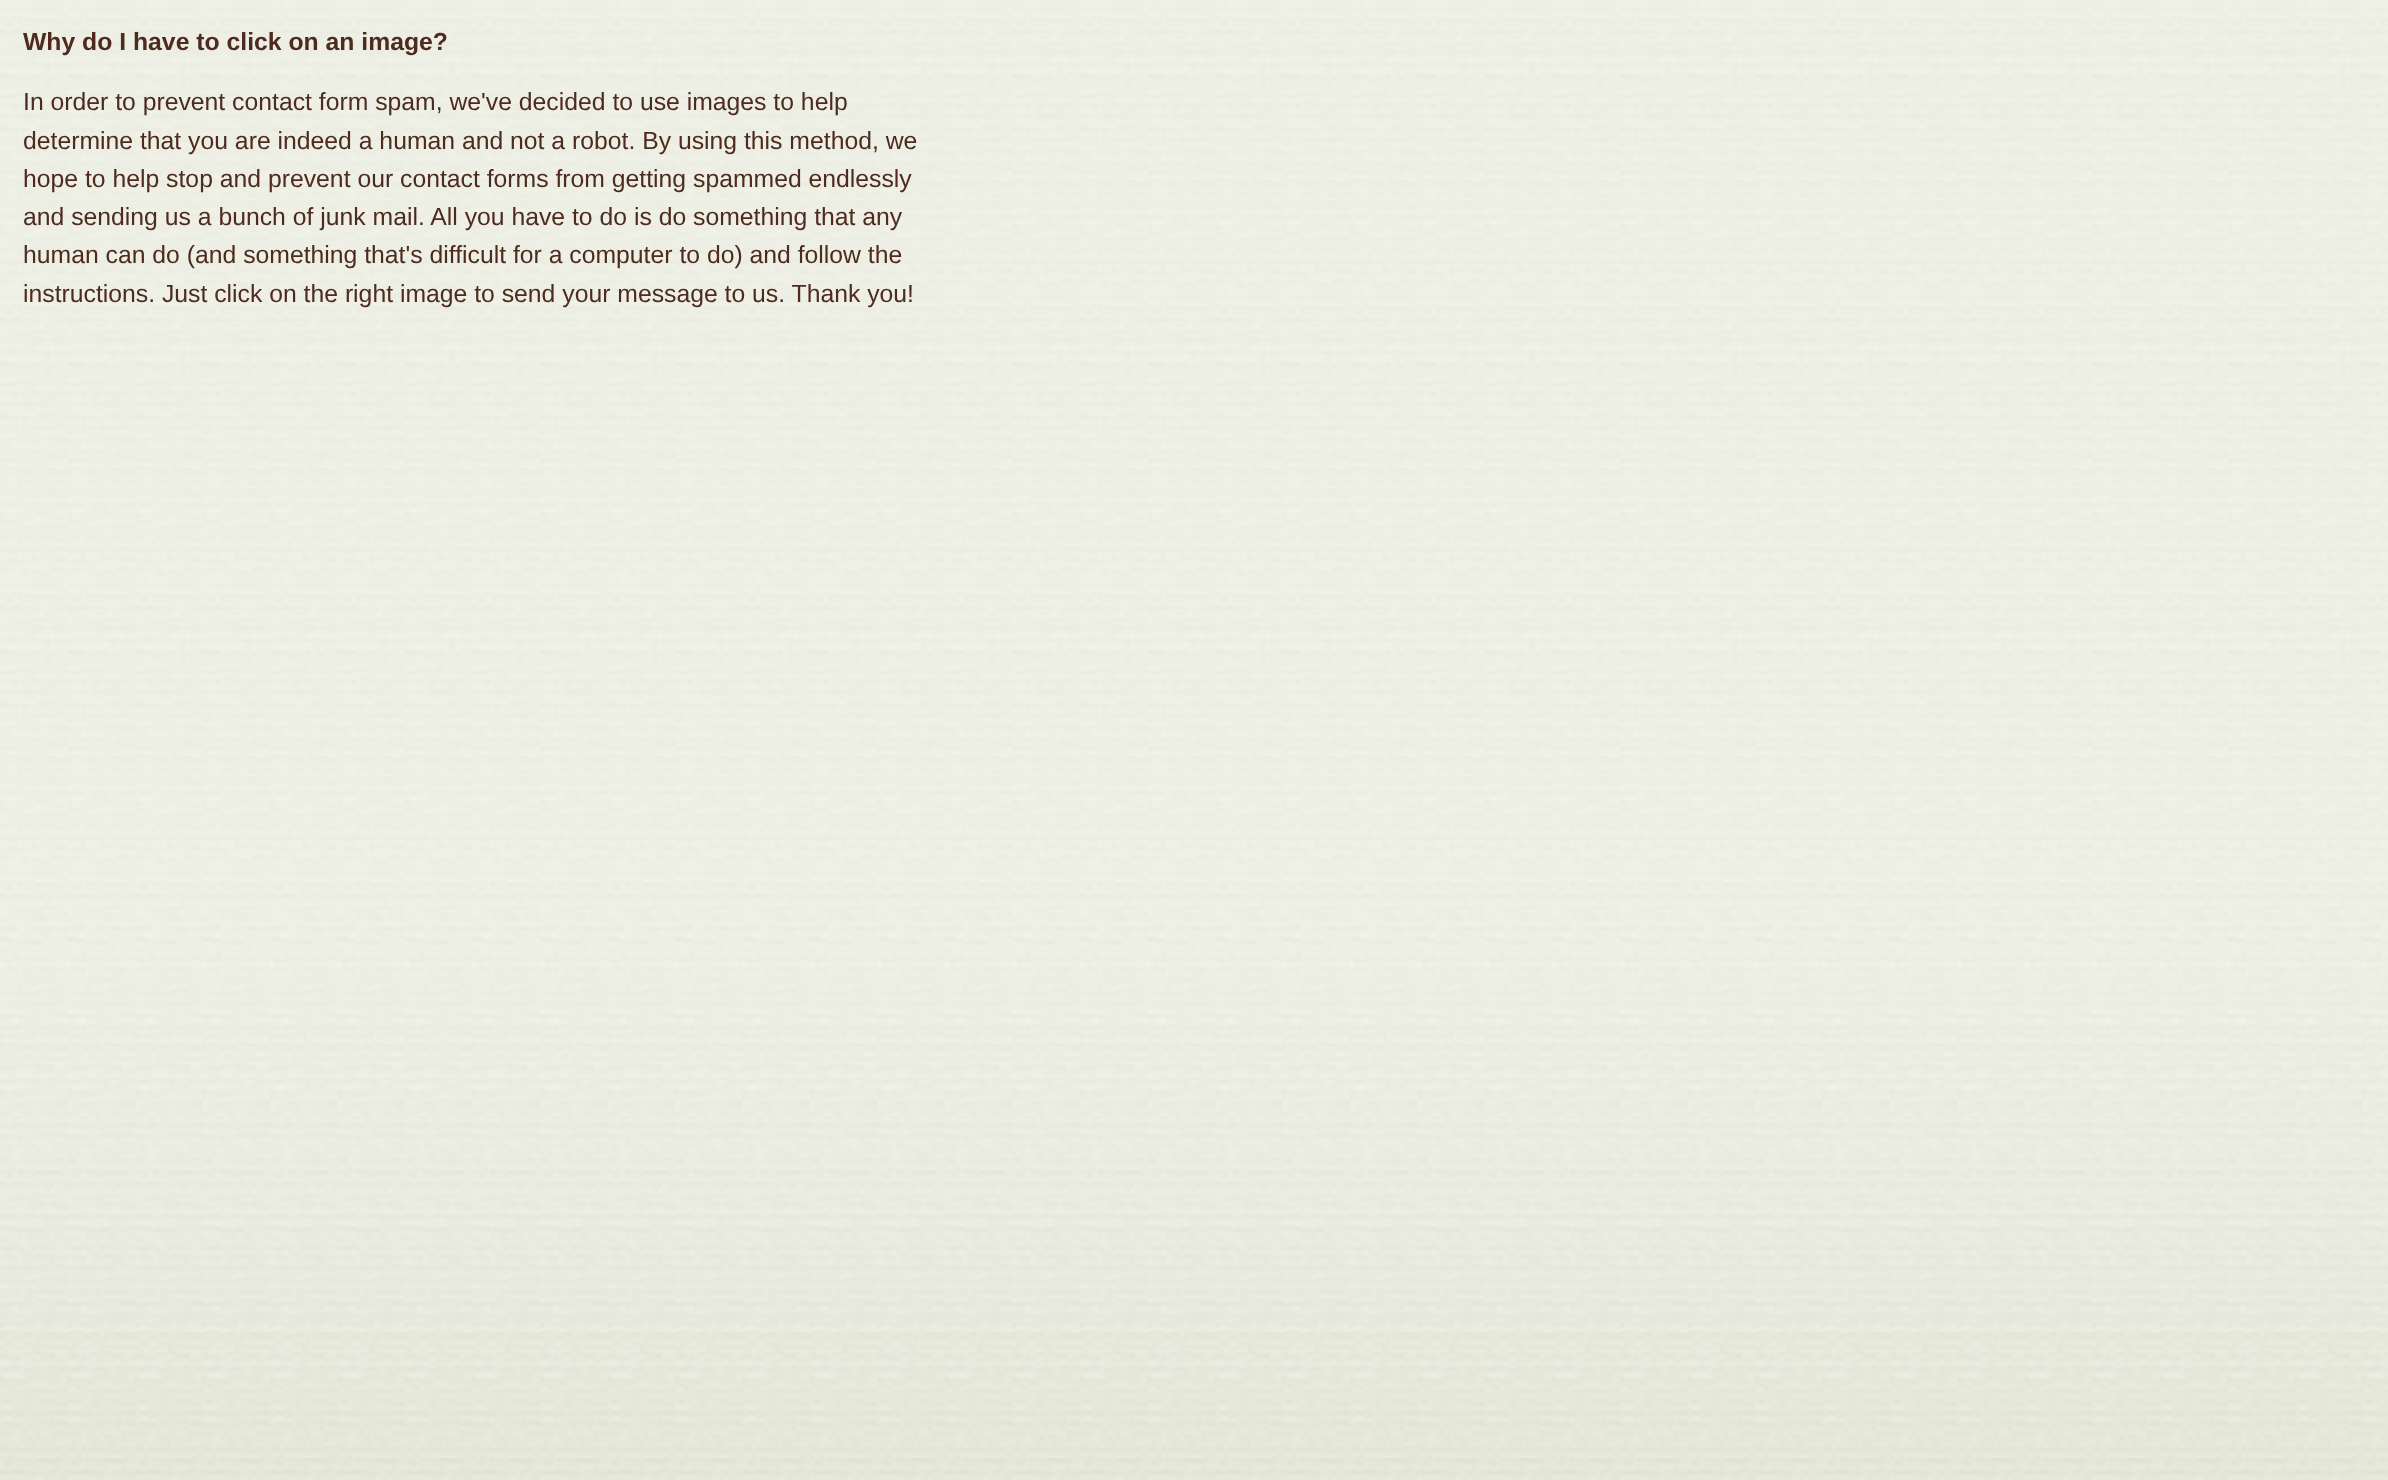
<svg xmlns="http://www.w3.org/2000/svg" width="2388" height="1480">
<rect width="100%" height="100%" fill="#fff"/>
<image x="0" y="0" width="2388" height="1480" href="media/1.png"/>
<text x="23" y="50" style="font-family:Liberation Sans;font-size:24.75px;font-weight:bold;fill:#4e2b1e">Why do I have to click on an image?</text>
<text x="23" y="110" style="font-family:Liberation Sans;font-size:24.75px;fill:#4e2b1e">In order to prevent contact form spam, we've decided to use images to help</text>
<text x="23" y="149" style="font-family:Liberation Sans;font-size:24.75px;fill:#4e2b1e">determine that you are indeed a human and not a robot. By using this method, we</text>
<text x="23" y="187" style="font-family:Liberation Sans;font-size:24.75px;fill:#4e2b1e">hope to help stop and prevent our contact forms from getting spammed endlessly</text>
<text x="23" y="225" style="font-family:Liberation Sans;font-size:24.75px;fill:#4e2b1e">and sending us a bunch of junk mail. All you have to do is do something that any</text>
<text x="23" y="263" style="font-family:Liberation Sans;font-size:24.75px;fill:#4e2b1e">human can do (and something that's difficult for a computer to do) and follow the</text>
<text x="23" y="302" style="font-family:Liberation Sans;font-size:24.75px;fill:#4e2b1e">instructions. Just click on the right image to send your message to us. Thank you!</text>
</svg>
